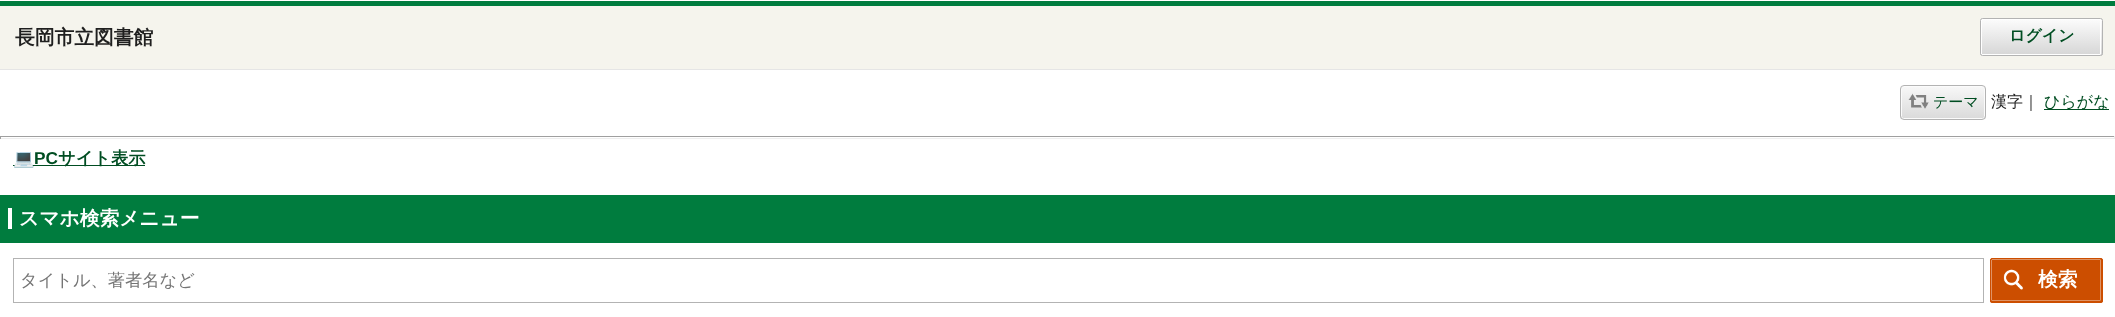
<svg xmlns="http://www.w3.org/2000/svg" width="2115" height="317">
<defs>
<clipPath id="clip1"><rect x="1980" y="18" width="123" height="38" rx="2.5"/></clipPath>
<linearGradient id="g1" gradientUnits="userSpaceOnUse" x1="2041" y1="19" x2="2041" y2="55"><stop offset="0" stop-color="#fcfcfc"/><stop offset="1" stop-color="#d6d6d6"/></linearGradient>
<clipPath id="clip2"><rect x="1900" y="85" width="86" height="35" rx="4"/></clipPath>
<linearGradient id="g2" gradientUnits="userSpaceOnUse" x1="1943" y1="86" x2="1943" y2="119"><stop offset="0" stop-color="#f8f8f8"/><stop offset="1" stop-color="#dadada"/></linearGradient>
</defs>
<rect width="100%" height="100%" fill="#fff"/>
<rect y="1" width="2115" height="5" fill="#007c3e"/>
<rect y="6" width="2115" height="63" fill="#f5f4ed"/>
<rect y="69" width="2115" height="1" fill="#e5e5e5"/>
<text x="15" y="44" style="font-family:WenQuanYi Zen Hei;font-size:19.75px;font-weight:bold;fill:#1f1f1f">長岡市立図書館</text>
<g clip-path="url(#clip1)">
<rect x="1980" y="19" width="123" height="36" fill="url(#g1)"/>
</g>
<rect x="1981.5" y="19.5" width="119" height="35" rx="0.5" fill="none" stroke="#fff"/>
<rect x="1980.5" y="18.5" width="122" height="37" rx="2" fill="none" stroke="#b3b3b3"/>
<text x="2009" y="41" style="font-family:WenQuanYi Zen Hei;font-size:16px;font-weight:bold;fill:#004d22">ログイン</text>
<g clip-path="url(#clip2)">
<rect x="1900" y="86" width="86" height="33" fill="url(#g2)"/>
</g>
<rect x="1901.5" y="86.5" width="83" height="32" rx="2" fill="none" stroke="#fbfbfb"/>
<rect x="1900.5" y="85.5" width="85" height="34" rx="3.5" fill="none" stroke="#b3b3b3"/>
<image x="1908" y="93" width="21" height="16" href="media/1.png"/>
<text x="1933" y="107" style="font-family:WenQuanYi Zen Hei;font-size:15px;font-weight:500;fill:#004d22">テーマ</text>
<text x="1991" y="107" style="font-family:WenQuanYi Zen Hei;font-size:16px;font-weight:500;fill:#1f1f1f">漢字｜</text>
<rect x="2044" y="109" width="65" height="1" fill="#004d22"/>
<text x="2044" y="107" style="font-family:WenQuanYi Zen Hei;font-size:16px;font-weight:500;fill:#004d22">ひらがな</text>
<rect y="136" width="2115" height="1" fill="#9f9f9f"/>
<rect x="2114" y="136" width="1" height="3" fill="#eee"/>
<rect y="138" width="2115" height="1" fill="#eee"/>
<rect y="136" width="1" height="3" fill="#9f9f9f"/>
<rect x="13" y="165" width="132" height="1" fill="#004d22"/>
<text x="13" y="164" style="font-family:Noto Color Emoji;font-size:17.25px;font-weight:bold;fill:#004d22">💻</text>
<text x="34" y="164" style="font-family:Liberation Sans;font-size:17.25px;font-weight:bold;fill:#004d22">PC</text>
<text x="58" y="164" style="font-family:WenQuanYi Zen Hei;font-size:17.25px;font-weight:bold;fill:#004d22">サイト表示</text>
<rect y="195" width="2115" height="48" fill="#007c3e"/>
<text x="19" y="225" style="font-family:WenQuanYi Zen Hei;font-size:19.75px;font-weight:bold;fill:#fff">スマホ検索メニュー</text>
<rect x="8" y="208" width="4" height="21" fill="#fff"/>
<rect x="13.5" y="258.5" width="1970" height="44" fill="none" stroke="#b3b3b3"/>
<text x="20" y="286" style="font-family:WenQuanYi Zen Hei;font-size:17.25px;font-weight:500;fill:#757575">タイトル、著者名など</text>
<rect x="1990" y="258" width="113" height="45" rx="2.5" fill="#cc4e00"/>
<image x="2003" y="269" width="20" height="21" href="media/2.png"/>
<rect x="1991.5" y="259.5" width="109" height="41" rx="0.5" fill="none" stroke="#df9365"/>
<rect x="1990.5" y="258.5" width="112" height="44" rx="2" fill="none" stroke="#cc4e00"/>
<text x="2038" y="286" style="font-family:WenQuanYi Zen Hei;font-size:19.75px;font-weight:bold;fill:#fff">検索</text>
</svg>
